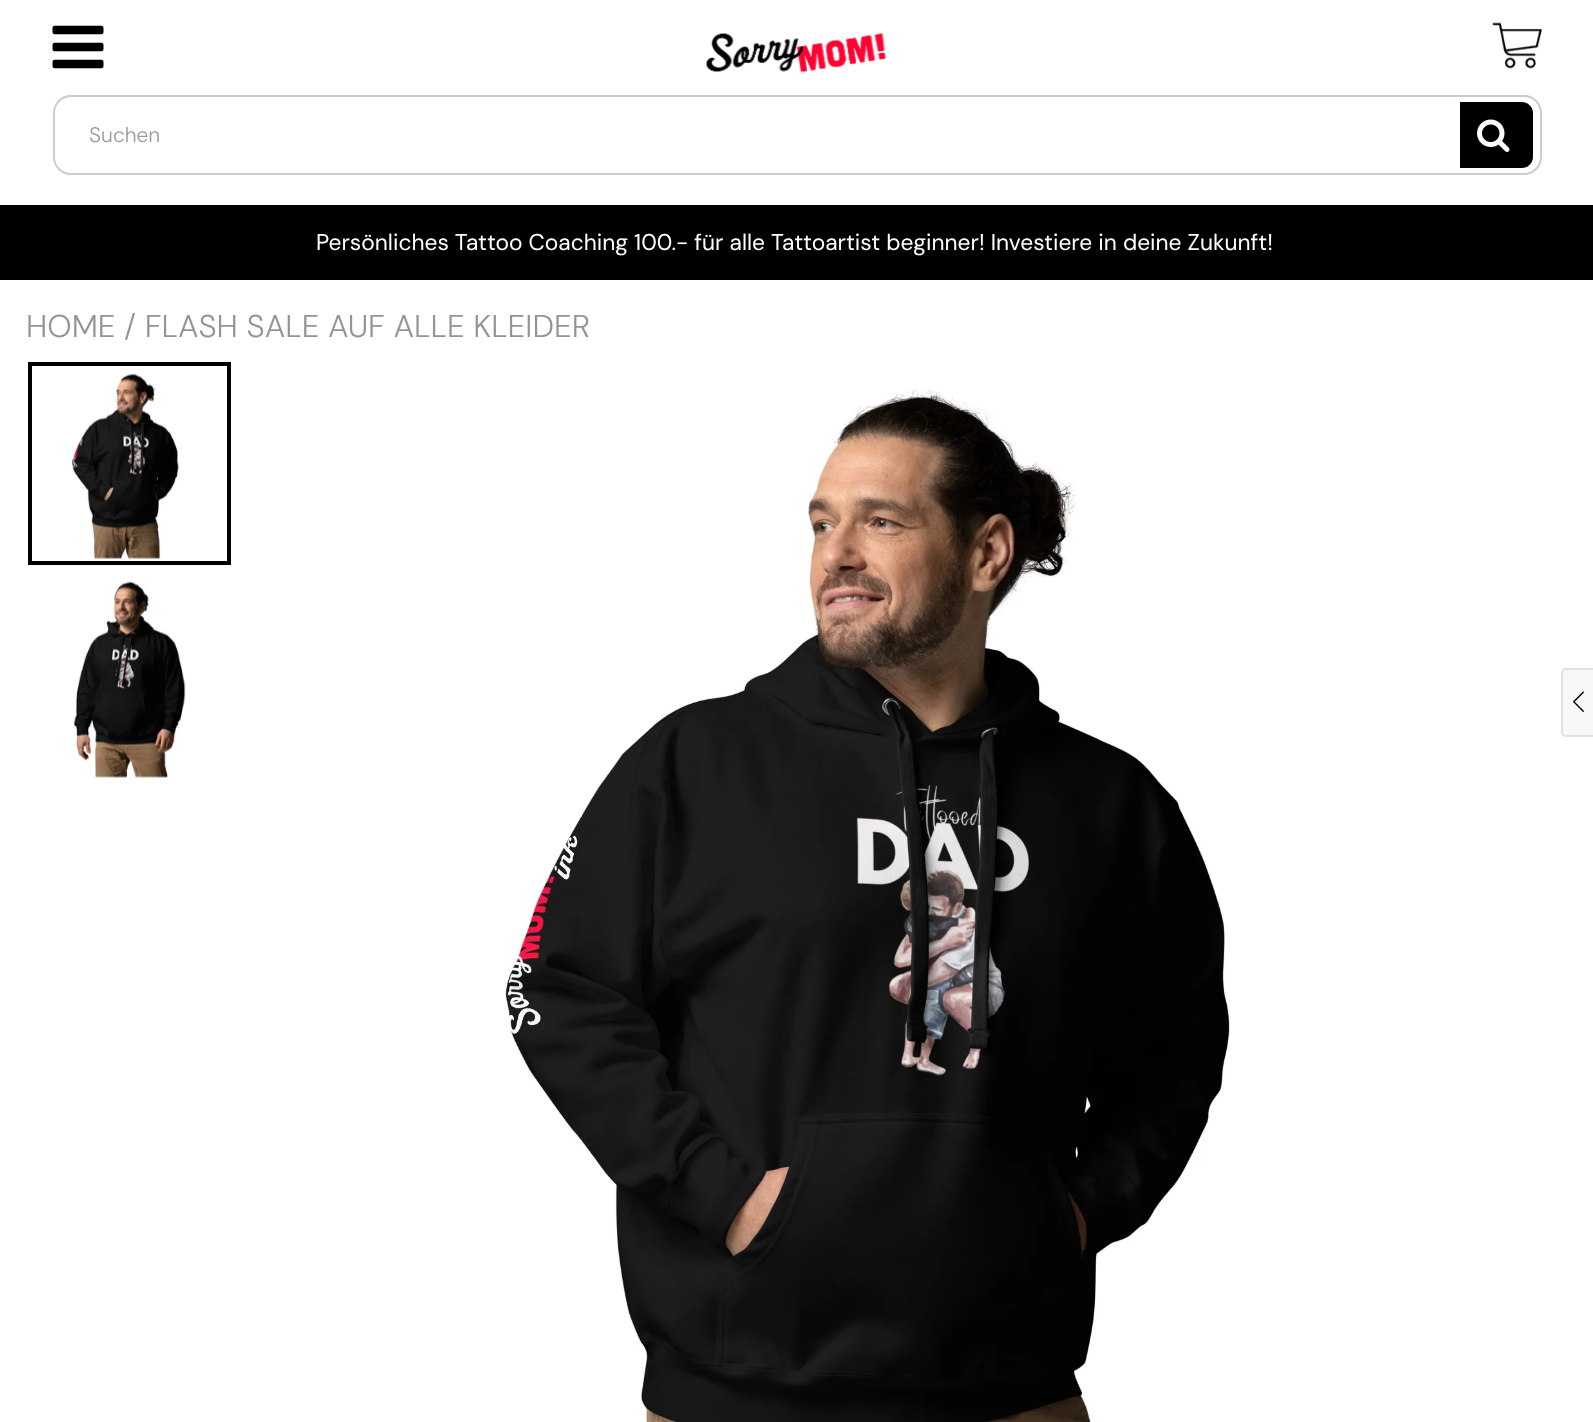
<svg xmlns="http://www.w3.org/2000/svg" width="1593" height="1422">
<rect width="100%" height="100%" fill="#fff"/>
<image x="52" y="25" width="52" height="44" href="media/1.png"/>
<image x="705" y="33" width="182" height="40" href="media/2.png"/>
<image x="1492" y="22" width="50" height="47" href="media/3.png"/>
<rect x="54" y="96" width="1487" height="78" rx="17" fill="none" stroke="#ccc" stroke-width="2"/>
<text x="89" y="142" style="font-family:DM Sans;font-size:21px;font-weight:300;fill:#9b9898">Suchen</text>
<path d="M1460 102h62c6 0 11 5 11 11v44c0 6-5 11-11 11h-62z" fill="#000"/>
<image x="1477" y="119" width="33" height="33" href="media/4.png"/>
<rect y="205" width="1593" height="75" fill="#000"/>
<text x="316" y="250" style="font-family:DM Sans;font-size:22.75px;fill:#fff">Persönliches Tattoo Coaching 100.- für alle Tattoartist beginner! Investiere in deine Zukunft!</text>
<text x="26" y="337" style="font-family:DM Sans;font-size:31.5px;font-weight:300;fill:#949494">HOME</text>
<text x="124" y="337" style="font-family:DM Sans;font-size:31.5px;font-weight:300;fill:#949494">/ FLASH SALE AUF ALLE KLEIDER</text>
<image x="71" y="373" width="109" height="186" href="media/5.png"/>
<rect x="30" y="364" width="199" height="199" fill="none" stroke="#000" stroke-width="4"/>
<image x="73" y="581" width="113" height="197" href="media/6.png"/>
<image x="505" y="389" width="725" height="1033" href="media/7.png"/>
<path d="M1566 669h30v68h-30c-3 0-5-2-5-5v-58c0-3 2-5 5-5z" fill="#f8f8f8"/>
<path d="M1566 668h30v69h-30c-3 0-5-3-5-5v-58c0-3 2-6 5-6zm0 2h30v65h-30c-2 0-3-2-3-3v-58c0-2 1-4 3-4z" fill="#e1e1e1" fill-rule="evenodd"/>
<image x="1573" y="691" width="11" height="21" href="media/8.png"/>
</svg>
